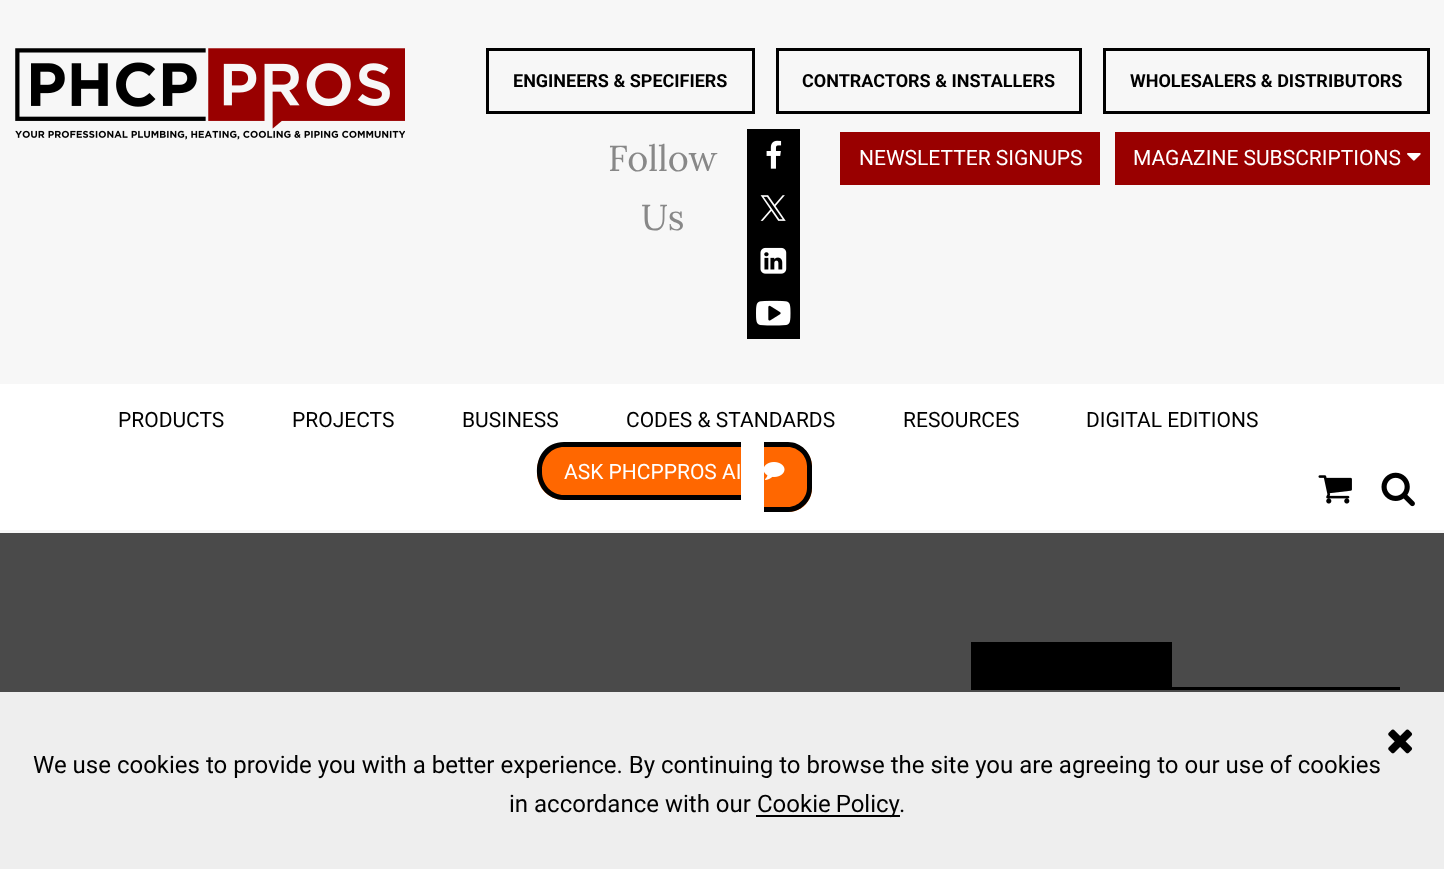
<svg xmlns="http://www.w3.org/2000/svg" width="1444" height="869">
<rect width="100%" height="100%" fill="#f7f7f7"/>
<image x="15" y="48" width="390" height="92" href="media/1.png"/>
<rect x="487.5" y="49.5" width="266" height="63" fill="none" stroke="#000" stroke-width="3"/>
<text x="513" y="87" style="font-family:Roboto;font-size:18px;font-weight:bold;fill:#000">ENGINEERS &amp; SPECIFIERS</text>
<rect x="777.5" y="49.5" width="303" height="63" fill="none" stroke="#000" stroke-width="3"/>
<text x="802" y="87" style="font-family:Roboto;font-size:18px;font-weight:bold;fill:#000">CONTRACTORS &amp; INSTALLERS</text>
<rect x="1104.5" y="49.5" width="324" height="63" fill="none" stroke="#000" stroke-width="3"/>
<text x="1130" y="87" style="font-family:Roboto;font-size:18px;font-weight:bold;fill:#000">WHOLESALERS &amp; DISTRIBUTORS</text>
<text x="608" y="171" style="font-family:Lora;font-size:36px;fill:#888">Follow</text>
<text x="641" y="230" style="font-family:Lora;font-size:36px;fill:#888">Us</text>
<rect x="747" y="129" width="53" height="210" fill="#000"/>
<image x="766" y="140" width="16" height="29" href="media/2.png"/>
<image x="760" y="195" width="26" height="26" href="media/3.png"/>
<image x="760" y="247" width="27" height="27" href="media/4.png"/>
<image x="756" y="300" width="35" height="26" href="media/5.png"/>
<rect x="840" y="132" width="260" height="53" fill="#900"/>
<text x="859" y="165" style="font-family:Roboto;font-size:21px;fill:#fff">NEWSLETTER SIGNUPS</text>
<rect x="1115" y="132" width="315" height="53" fill="#900"/>
<text x="1133" y="165" style="font-family:Roboto;font-size:21px;fill:#fff">MAGAZINE SUBSCRIPTIONS</text>
<image x="1407" y="153" width="14" height="8" href="media/6.png"/>
<rect y="384" width="1444" height="146" fill="#fff"/>
<text x="118" y="427" style="font-family:Roboto;font-size:21px;fill:#000">PRODUCTS</text>
<text x="292" y="427" style="font-family:Roboto;font-size:21px;fill:#000">PROJECTS</text>
<text x="462" y="427" style="font-family:Roboto;font-size:21px;fill:#000">BUSINESS</text>
<text x="626" y="427" style="font-family:Roboto;font-size:21px;fill:#000">CODES &amp; STANDARDS</text>
<text x="903" y="427" style="font-family:Roboto;font-size:21px;fill:#000">RESOURCES</text>
<text x="1086" y="427" style="font-family:Roboto;font-size:21px;fill:#000">DIGITAL EDITIONS</text>
<path d="M564 443h177v57h-177c-15 0-27-12-27-27v-3c0-15 12-27 27-27z" fill="#ff6700"/>
<path d="M564 442h177v58h-177c-36-1-36-58 0-58zm0 5h177v48h-177c-12 0-22-10-22-23v-2c0-13 10-23 22-23z" fill="#000" fill-rule="evenodd"/>
<path d="M764 443h24c13.5 0 24 10.5 24 24v21c0 13.5-10.5 24-24 24h-24z" fill="#ff6700"/>
<path d="M764 442h24c13 0 24 11 24 24v22c0 13-11 24-24 24h-24zm0 5h24c10 0 19 9 19 19v22c0 10-9 19-19 19h-24z" fill="#000" fill-rule="evenodd"/>
<text x="564" y="479" style="font-family:Roboto;font-size:21px;fill:#fff">ASK PHCPPROS AI</text>
<image x="764" y="462" width="21" height="18" href="media/7.png"/>
<image x="1318" y="475" width="34" height="29" href="media/8.png"/>
<image x="1381" y="472" width="34" height="35" href="media/9.png"/>
<rect x="971" y="642" width="201" height="48" fill="#000"/>
<rect x="1172" y="687" width="228" height="3" fill="#000"/>
<rect y="533" width="1444" height="159" fill="#000000b3"/>
<rect y="692" width="1444" height="177" fill="#eee"/>
<image x="1388" y="729" width="25" height="25" href="media/10.png"/>
<text x="33" y="773" style="font-family:Roboto;font-size:24px;fill:#000">We use cookies to provide you with a better experience. By continuing to browse the site you are agreeing to our use of cookies</text>
<text x="509" y="812" style="font-family:Roboto;font-size:24px;fill:#000">in accordance with our</text>
<rect x="756" y="815" width="144" height="2" fill="#000"/>
<text x="757" y="812" word-spacing="-1" style="font-family:Roboto;font-size:24px;fill:#000">Cookie Policy</text>
<text x="899" y="812" style="font-family:Roboto;font-size:24px;fill:#000">.</text>
</svg>
